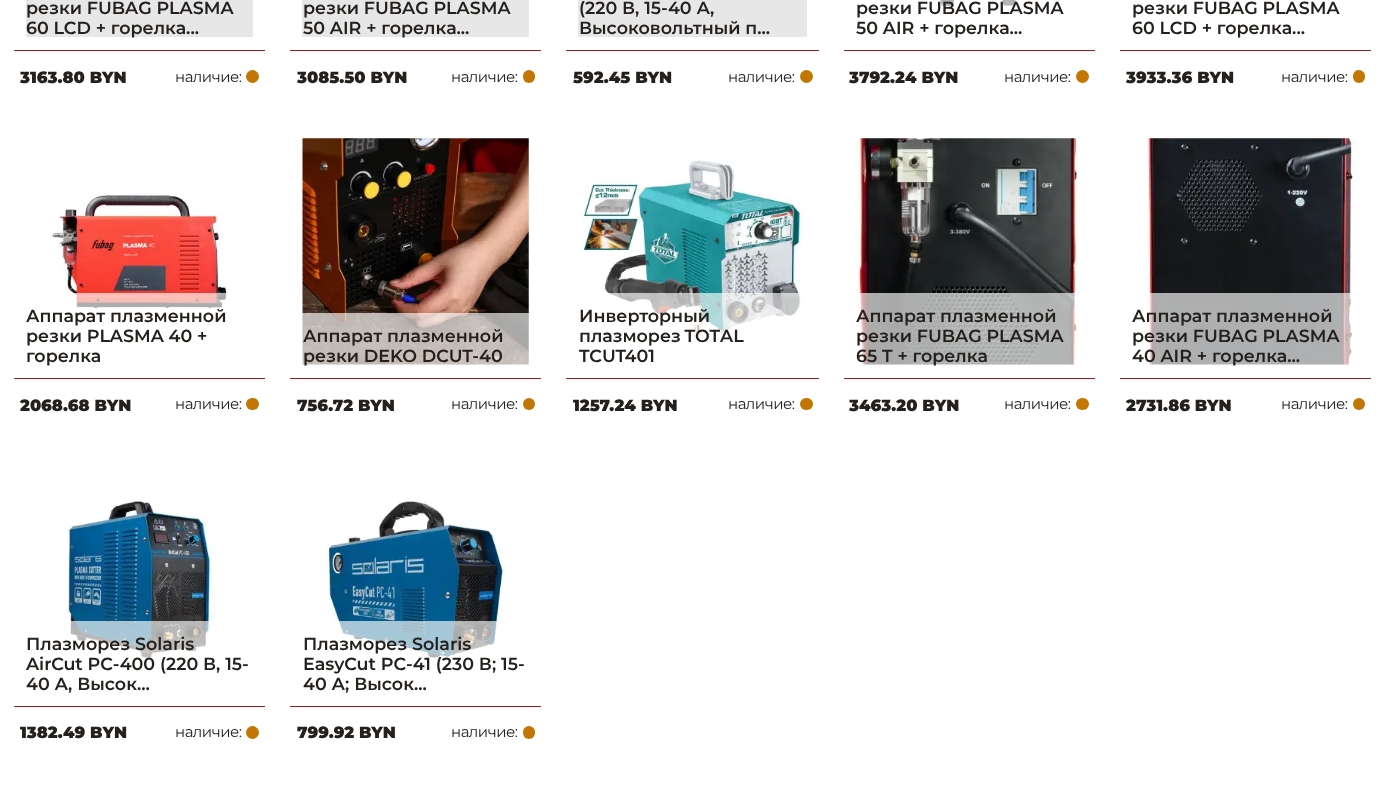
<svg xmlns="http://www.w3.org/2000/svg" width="1384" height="804">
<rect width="100%" height="100%" fill="#fff"/>
<rect x="26" width="227" height="37" fill="#e7e7e7"/>
<text x="26" y="14" style="font-family:Montserrat;font-size:17.5px;font-weight:600;fill:#24211d">резки FUBAG PLASMA</text>
<text x="26" y="34" style="font-family:Montserrat;font-size:17.5px;font-weight:600;fill:#24211d">60 LCD + горелка...</text>
<rect x="14" y="50" width="251" height="1" fill="#b11517"/>
<text x="20" y="83" style="font-family:Montserrat;font-size:16.25px;font-weight:900;fill:#24211d">3163.80 BYN</text>
<text x="175" y="82" style="font-family:Montserrat;font-size:15px;letter-spacing:-0.5px;fill:#24211d">наличие:</text>
<circle cx="252.5" cy="76.5" r="6.5" fill="#c37703"/>
<rect x="302" width="227" height="37" fill="#e7e7e7"/>
<text x="303" y="14" style="font-family:Montserrat;font-size:17.5px;font-weight:600;fill:#24211d">резки FUBAG PLASMA</text>
<text x="303" y="34" style="font-family:Montserrat;font-size:17.5px;font-weight:600;fill:#24211d">50 AIR + горелка...</text>
<rect x="290" y="50" width="251" height="1" fill="#b11517"/>
<text x="297" y="83" style="font-family:Montserrat;font-size:16.25px;font-weight:900;fill:#24211d">3085.50 BYN</text>
<text x="451" y="82" style="font-family:Montserrat;font-size:15px;letter-spacing:-0.5px;fill:#24211d">наличие:</text>
<rect x="523" y="70" width="12" height="13" rx="6" fill="#c37703"/>
<rect x="578" width="229" height="37" fill="#e7e7e7"/>
<text x="579" y="14" style="font-family:Montserrat;font-size:17.5px;font-weight:600;fill:#24211d">(220 В, 15-40 А,</text>
<text x="579" y="34" style="font-family:Montserrat;font-size:17.5px;font-weight:600;fill:#24211d">Высоковольтный п...</text>
<rect x="566" y="50" width="253" height="1" fill="#b11517"/>
<text x="573" y="83" style="font-family:Montserrat;font-size:16.25px;font-weight:900;fill:#24211d">592.45 BYN</text>
<text x="728" y="82" style="font-family:Montserrat;font-size:15px;letter-spacing:-0.5px;fill:#24211d">наличие:</text>
<circle cx="806.5" cy="76.5" r="6.5" fill="#c37703"/>
<image x="938" y="0" width="79" height="7" href="media/1.png"/>
<text x="856" y="14" style="font-family:Montserrat;font-size:17.5px;font-weight:600;fill:#24211d">резки FUBAG PLASMA</text>
<text x="856" y="34" style="font-family:Montserrat;font-size:17.5px;font-weight:600;fill:#24211d">50 AIR + горелка...</text>
<rect x="844" y="50" width="251" height="1" fill="#b11517"/>
<text x="849" y="83" style="font-family:Montserrat;font-size:16.25px;font-weight:900;fill:#24211d">3792.24 BYN</text>
<text x="1004" y="82" style="font-family:Montserrat;font-size:15px;letter-spacing:-0.5px;fill:#24211d">наличие:</text>
<circle cx="1082.5" cy="76.5" r="6.5" fill="#c37703"/>
<image x="1301" y="0" width="8" height="1" href="media/2.png"/>
<text x="1132" y="14" style="font-family:Montserrat;font-size:17.5px;font-weight:600;fill:#24211d">резки FUBAG PLASMA</text>
<text x="1132" y="34" style="font-family:Montserrat;font-size:17.5px;font-weight:600;fill:#24211d">60 LCD + горелка...</text>
<rect x="1120" y="50" width="251" height="1" fill="#b11517"/>
<text x="1126" y="83" style="font-family:Montserrat;font-size:16.25px;font-weight:900;fill:#24211d">3933.36 BYN</text>
<text x="1281" y="82" style="font-family:Montserrat;font-size:15px;letter-spacing:-0.5px;fill:#24211d">наличие:</text>
<rect x="1353" y="70" width="12" height="13" rx="6" fill="#c37703"/>
<image x="50" y="193" width="179" height="117" href="media/3.png"/>
<rect x="70" y="293" width="159" height="17" fill="#ffffffa6"/>
<text x="26" y="322" style="font-family:Montserrat;font-size:17.5px;font-weight:600;fill:#24211d">Аппарат плазменной</text>
<text x="26" y="342" style="font-family:Montserrat;font-size:17.5px;font-weight:600;fill:#24211d">резки PLASMA 40 +</text>
<text x="26" y="362" style="font-family:Montserrat;font-size:17.5px;font-weight:600;fill:#24211d">горелка</text>
<rect x="14" y="378" width="251" height="1" fill="#b11517"/>
<text x="20" y="411" style="font-family:Montserrat;font-size:16.25px;font-weight:900;fill:#24211d">2068.68 BYN</text>
<text x="175" y="409" style="font-family:Montserrat;font-size:15px;letter-spacing:-0.5px;fill:#24211d">наличие:</text>
<rect x="246" y="398" width="13" height="12" rx="6" fill="#c37703"/>
<image x="302" y="138" width="227" height="227" href="media/4.png"/>
<rect x="302" y="313" width="227" height="52" fill="#ffffffa6"/>
<text x="303" y="342" style="font-family:Montserrat;font-size:17.5px;font-weight:600;fill:#24211d">Аппарат плазменной</text>
<text x="303" y="362" style="font-family:Montserrat;font-size:17.5px;font-weight:600;fill:#24211d">резки DEKO DCUT-40</text>
<rect x="290" y="378" width="251" height="1" fill="#b11517"/>
<text x="297" y="411" style="font-family:Montserrat;font-size:16.25px;font-weight:900;fill:#24211d">756.72 BYN</text>
<text x="451" y="409" style="font-family:Montserrat;font-size:15px;letter-spacing:-0.5px;fill:#24211d">наличие:</text>
<circle cx="529" cy="404" r="6" fill="#c37703"/>
<image x="579" y="159" width="224" height="176" href="media/5.png"/>
<rect x="606" y="293" width="196" height="42" fill="#ffffffa6"/>
<text x="579" y="322" style="font-family:Montserrat;font-size:17.5px;font-weight:600;fill:#24211d">Инверторный</text>
<text x="579" y="342" word-spacing="-1" style="font-family:Montserrat;font-size:17.5px;font-weight:600;fill:#24211d">плазморез TOTAL</text>
<text x="579" y="362" style="font-family:Montserrat;font-size:17.5px;font-weight:600;fill:#24211d">TCUT401</text>
<rect x="566" y="378" width="253" height="1" fill="#b11517"/>
<text x="573" y="411" style="font-family:Montserrat;font-size:16.25px;font-weight:900;fill:#24211d">1257.24 BYN</text>
<text x="728" y="409" style="font-family:Montserrat;font-size:15px;letter-spacing:-0.5px;fill:#24211d">наличие:</text>
<rect x="800" y="398" width="13" height="12" rx="6" fill="#c37703"/>
<image x="856" y="138" width="224" height="227" href="media/6.png"/>
<rect x="856" y="293" width="224" height="72" fill="#ffffffa6"/>
<text x="856" y="322" style="font-family:Montserrat;font-size:17.5px;font-weight:600;fill:#24211d">Аппарат плазменной</text>
<text x="856" y="342" style="font-family:Montserrat;font-size:17.5px;font-weight:600;fill:#24211d">резки FUBAG PLASMA</text>
<text x="856" y="362" style="font-family:Montserrat;font-size:17.5px;font-weight:600;fill:#24211d">65 T + горелка</text>
<rect x="844" y="378" width="251" height="1" fill="#b11517"/>
<text x="849" y="411" style="font-family:Montserrat;font-size:16.25px;font-weight:900;fill:#24211d">3463.20 BYN</text>
<text x="1004" y="409" style="font-family:Montserrat;font-size:15px;letter-spacing:-0.5px;fill:#24211d">наличие:</text>
<rect x="1076" y="398" width="13" height="12" rx="6" fill="#c37703"/>
<image x="1144" y="138" width="214" height="227" href="media/7.png"/>
<rect x="1144" y="293" width="209" height="72" fill="#ffffffa6"/>
<text x="1132" y="322" style="font-family:Montserrat;font-size:17.5px;font-weight:600;fill:#24211d">Аппарат плазменной</text>
<text x="1132" y="342" style="font-family:Montserrat;font-size:17.5px;font-weight:600;fill:#24211d">резки FUBAG PLASMA</text>
<text x="1132" y="362" style="font-family:Montserrat;font-size:17.5px;font-weight:600;fill:#24211d">40 AIR + горелка...</text>
<rect x="1120" y="378" width="251" height="1" fill="#b11517"/>
<text x="1126" y="411" style="font-family:Montserrat;font-size:16.25px;font-weight:900;fill:#24211d">2731.86 BYN</text>
<text x="1281" y="409" style="font-family:Montserrat;font-size:15px;letter-spacing:-0.5px;fill:#24211d">наличие:</text>
<circle cx="1359" cy="404" r="6" fill="#c37703"/>
<image x="68" y="501" width="148" height="162" href="media/8.png"/>
<rect x="69" y="621" width="147" height="42" fill="#ffffffa6"/>
<text x="26" y="650" style="font-family:Montserrat;font-size:17.5px;font-weight:600;fill:#24211d">Плазморез Solaris</text>
<text x="26" y="670" style="font-family:Montserrat;font-size:17.5px;font-weight:600;fill:#24211d">AirCut PC-400 (220 В, 15-</text>
<text x="26" y="690" style="font-family:Montserrat;font-size:17.5px;font-weight:600;fill:#24211d">40 А, Высок...</text>
<rect x="14" y="706" width="251" height="1" fill="#b11517"/>
<text x="20" y="738" style="font-family:Montserrat;font-size:16.25px;font-weight:900;fill:#24211d">1382.49 BYN</text>
<text x="175" y="737" style="font-family:Montserrat;font-size:15px;letter-spacing:-0.5px;fill:#24211d">наличие:</text>
<circle cx="252.5" cy="732.5" r="6.5" fill="#c37703"/>
<image x="327" y="501" width="178" height="158" href="media/9.png"/>
<rect x="337" y="621" width="165" height="38" fill="#ffffffa6"/>
<text x="303" y="650" style="font-family:Montserrat;font-size:17.5px;font-weight:600;fill:#24211d">Плазморез Solaris</text>
<text x="303" y="670" style="font-family:Montserrat;font-size:17.5px;font-weight:600;fill:#24211d">EasyCut PC-41 (230 В; 15-</text>
<text x="303" y="690" style="font-family:Montserrat;font-size:17.5px;font-weight:600;fill:#24211d">40 А; Высок...</text>
<rect x="290" y="706" width="251" height="1" fill="#b11517"/>
<text x="297" y="738" style="font-family:Montserrat;font-size:16.25px;font-weight:900;fill:#24211d">799.92 BYN</text>
<text x="451" y="737" style="font-family:Montserrat;font-size:15px;letter-spacing:-0.5px;fill:#24211d">наличие:</text>
<rect x="523" y="726" width="12" height="13" rx="6" fill="#c37703"/>
</svg>
